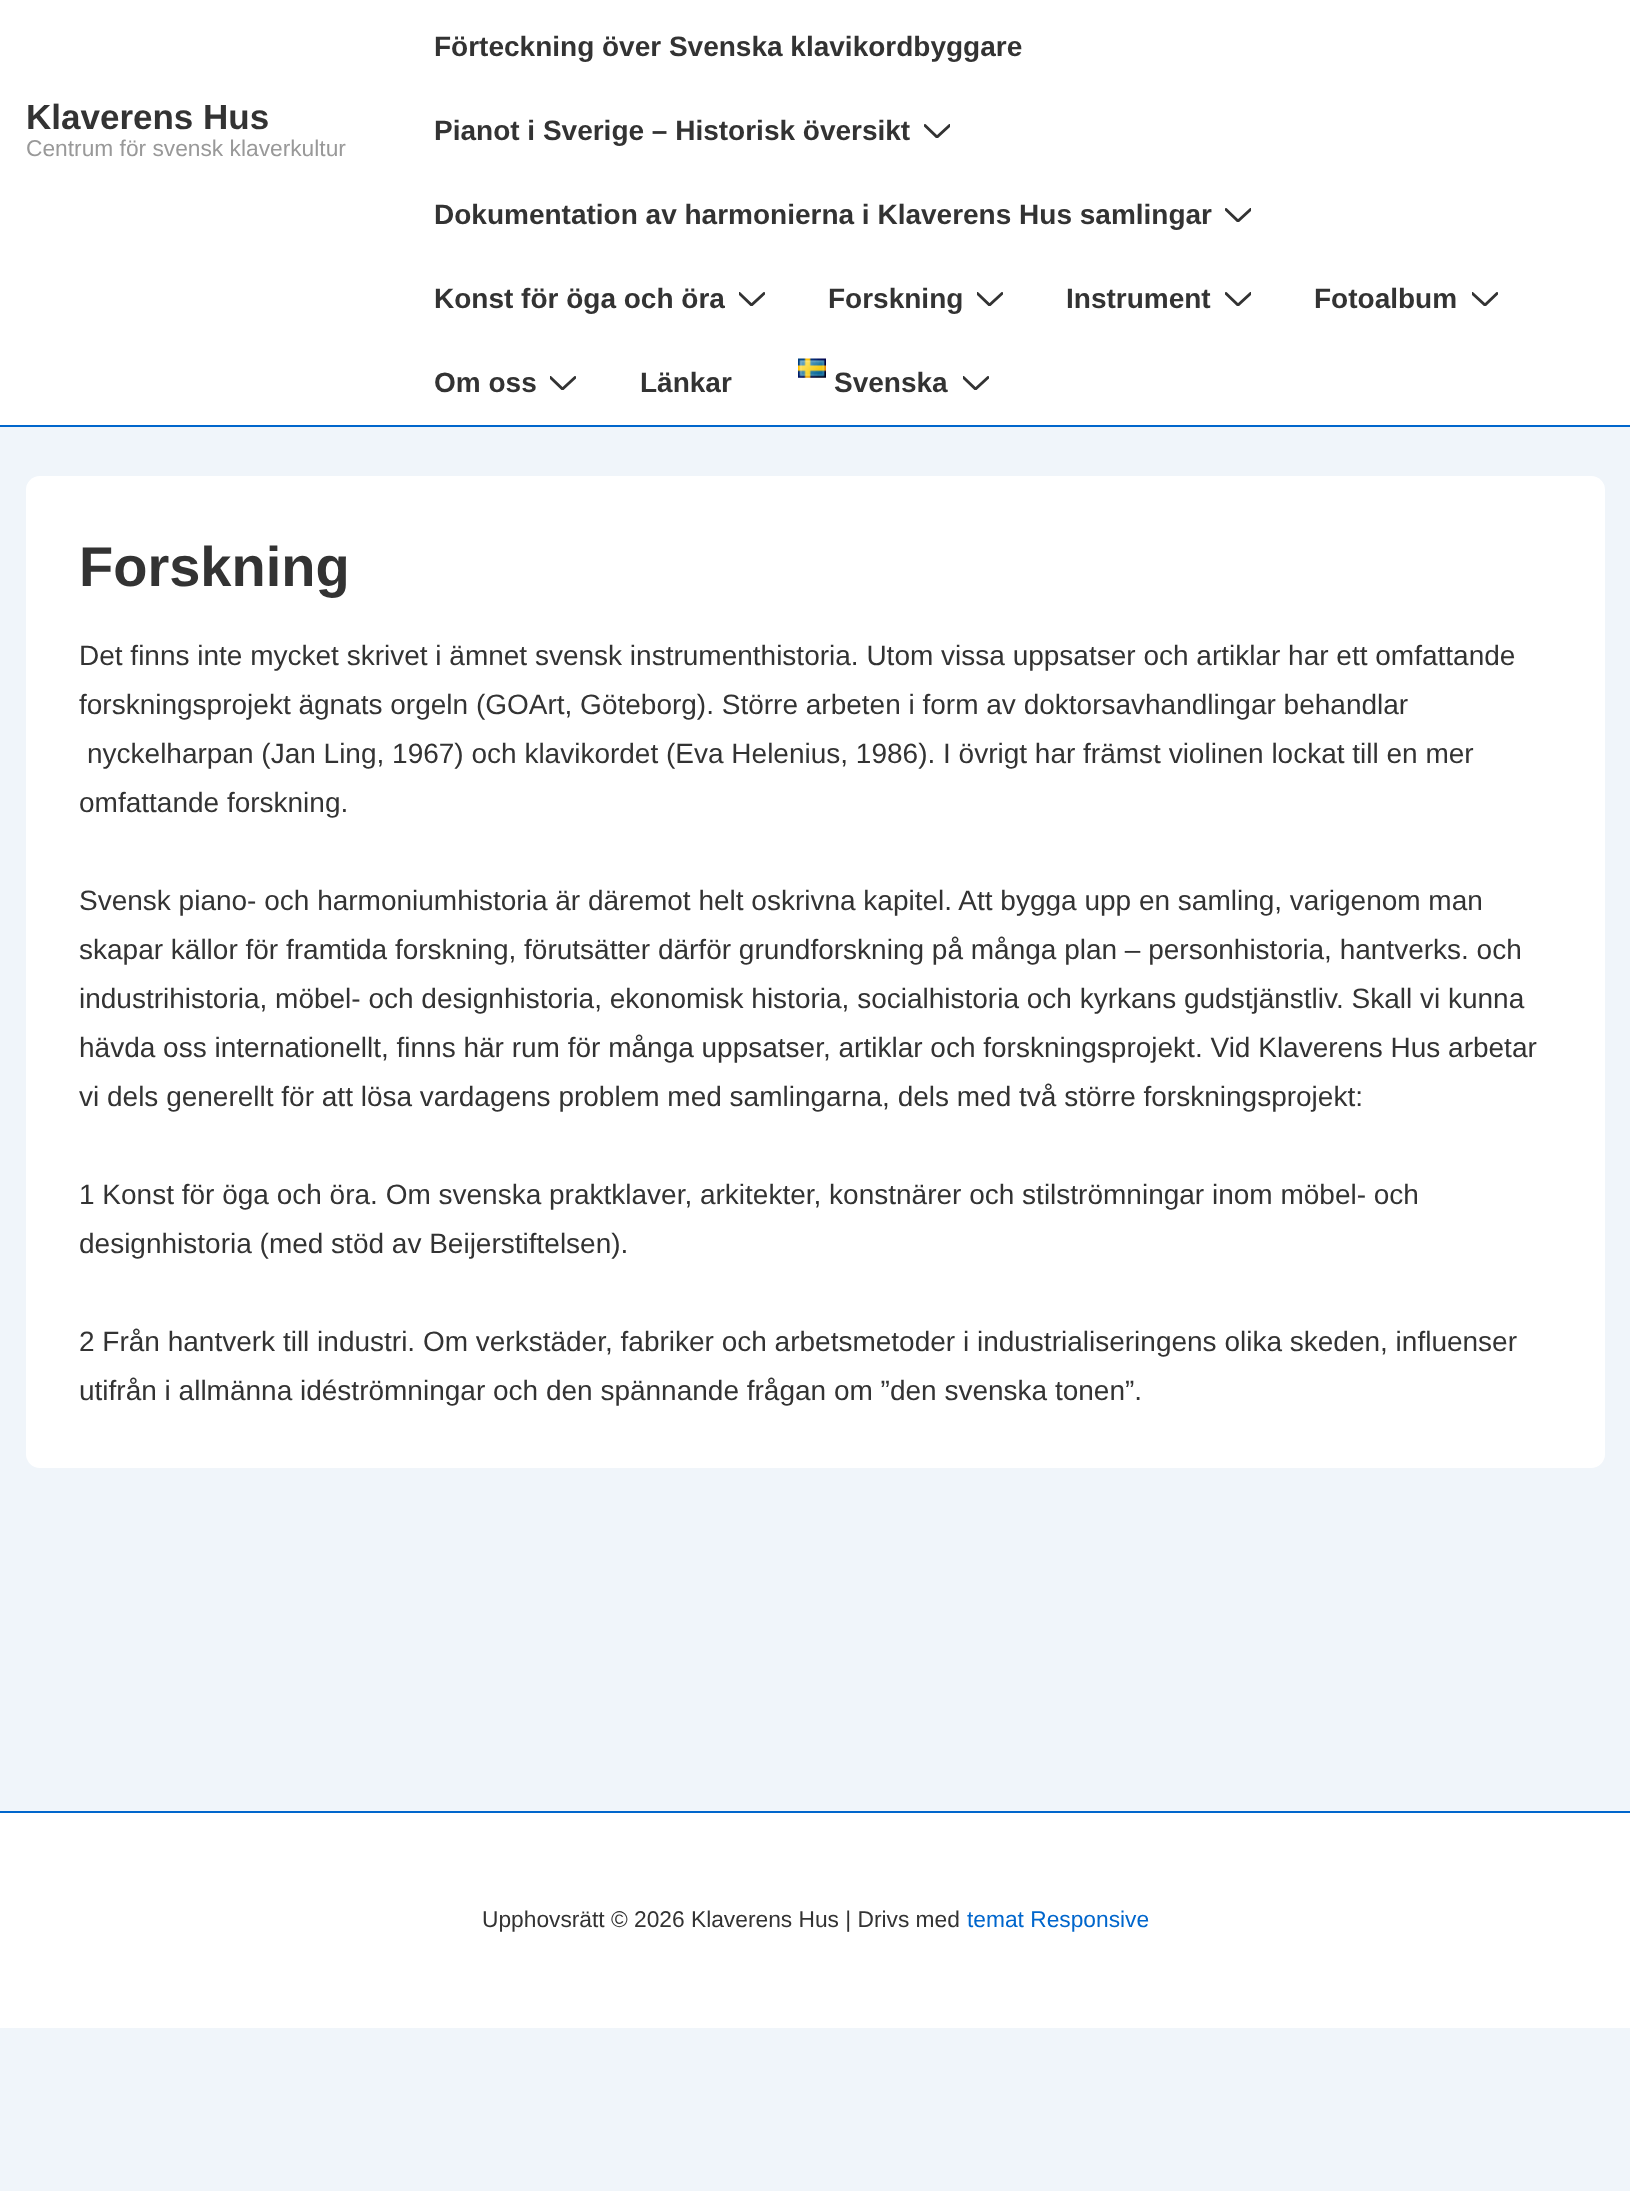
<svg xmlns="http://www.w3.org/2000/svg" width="1630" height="2191">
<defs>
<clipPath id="clip1"><rect x="924" y="124" width="26" height="14"/></clipPath>
<clipPath id="clip2"><rect x="1225" y="208" width="26" height="14"/></clipPath>
<clipPath id="clip3"><rect x="739" y="292" width="26" height="14"/></clipPath>
<clipPath id="clip4"><rect x="977" y="292" width="26" height="14"/></clipPath>
<clipPath id="clip5"><rect x="1225" y="292" width="26" height="14"/></clipPath>
<clipPath id="clip6"><rect x="1472" y="292" width="26" height="14"/></clipPath>
<clipPath id="clip7"><rect x="550" y="376" width="26" height="14"/></clipPath>
<clipPath id="clip8"><rect x="963" y="376" width="26" height="14"/></clipPath>
</defs>
<rect width="100%" height="100%" fill="#f0f5fa"/>
<rect width="1630" height="425" fill="#fff"/>
<rect y="425" width="1630" height="2" fill="#06c"/>
<text x="26" y="129" style="font-family:Liberation Sans;font-size:35px;font-weight:bold;fill:#333">Klaverens Hus</text>
<text x="26" y="156" style="font-family:Liberation Sans;font-size:22.75px;fill:#999">Centrum för svensk klaverkultur</text>
<text x="434" y="56" style="font-family:Liberation Sans;font-size:28px;font-weight:bold;fill:#333">Förteckning över Svenska klavikordbyggare</text>
<text x="434" y="140" style="font-family:Liberation Sans;font-size:28px;font-weight:bold;fill:#333">Pianot i Sverige – Historisk översikt</text>
<g clip-path="url(#clip1)">
<path d="M925 125.5l12 11.5l12.5-11.5" fill="none" stroke="#333" stroke-width="2.9" stroke-linecap="round"/>
</g>
<text x="434" y="224" style="font-family:Liberation Sans;font-size:28px;font-weight:bold;fill:#333">Dokumentation av harmonierna i Klaverens Hus samlingar</text>
<g clip-path="url(#clip2)">
<path d="M1226 209.5l12 11.5l12.5-11.5" fill="none" stroke="#333" stroke-width="2.9" stroke-linecap="round"/>
</g>
<text x="434" y="308" style="font-family:Liberation Sans;font-size:28px;font-weight:bold;fill:#333">Konst för öga och öra</text>
<g clip-path="url(#clip3)">
<path d="M739.5 293.5l12 11.5l12.5-11.5" fill="none" stroke="#333" stroke-width="2.9" stroke-linecap="round"/>
</g>
<text x="828" y="308" style="font-family:Liberation Sans;font-size:28px;font-weight:bold;fill:#333">Forskning</text>
<g clip-path="url(#clip4)">
<path d="M977.5 293.5l12 11.5l12.5-11.5" fill="none" stroke="#333" stroke-width="2.9" stroke-linecap="round"/>
</g>
<text x="1066" y="308" style="font-family:Liberation Sans;font-size:28px;font-weight:bold;fill:#333">Instrument</text>
<g clip-path="url(#clip5)">
<path d="M1226 293.5l12 11.5l12.5-11.5" fill="none" stroke="#333" stroke-width="2.9" stroke-linecap="round"/>
</g>
<text x="1314" y="308" style="font-family:Liberation Sans;font-size:28px;font-weight:bold;fill:#333">Fotoalbum</text>
<g clip-path="url(#clip6)">
<path d="M1472.5 293.5l12.5 11.5l12-11.5" fill="none" stroke="#333" stroke-width="2.9" stroke-linecap="round"/>
</g>
<text x="434" y="392" style="font-family:Liberation Sans;font-size:28px;font-weight:bold;fill:#333">Om oss</text>
<g clip-path="url(#clip7)">
<path d="M550.5 377.5l12 11.5l12.5-11.5" fill="none" stroke="#333" stroke-width="2.9" stroke-linecap="round"/>
</g>
<text x="640" y="392" style="font-family:Liberation Sans;font-size:28px;font-weight:bold;fill:#333">Länkar</text>
<image x="798" y="358" width="28" height="20" href="media/1.png"/>
<text x="834" y="392" style="font-family:Liberation Sans;font-size:28px;font-weight:bold;fill:#333">Svenska</text>
<g clip-path="url(#clip8)">
<path d="M963.5 377.5l12 11.5l12.5-11.5" fill="none" stroke="#333" stroke-width="2.9" stroke-linecap="round"/>
</g>
<rect x="26" y="476" width="1579" height="992" rx="14" fill="#fff"/>
<text x="79" y="586" style="font-family:Liberation Sans;font-size:56px;font-weight:bold;fill:#333">Forskning</text>
<text x="79" y="665" style="font-family:Liberation Sans;font-size:28px;fill:#333">Det finns inte mycket skrivet i ämnet svensk instrumenthistoria. Utom vissa uppsatser och artiklar har ett omfattande</text>
<text x="79" y="714" style="font-family:Liberation Sans;font-size:28px;fill:#333">forskningsprojekt ägnats orgeln (GOArt, Göteborg). Större arbeten i form av doktorsavhandlingar behandlar</text>
<text x="87" y="763" style="font-family:Liberation Sans;font-size:28px;fill:#333">nyckelharpan (Jan Ling, 1967) och klavikordet (Eva Helenius, 1986). I övrigt har främst violinen lockat till en mer</text>
<text x="79" y="812" style="font-family:Liberation Sans;font-size:28px;fill:#333">omfattande forskning.</text>
<text x="79" y="910" style="font-family:Liberation Sans;font-size:28px;fill:#333">Svensk piano- och harmoniumhistoria är däremot helt oskrivna kapitel. Att bygga upp en samling, varigenom man</text>
<text x="79" y="959" style="font-family:Liberation Sans;font-size:28px;fill:#333">skapar källor för framtida forskning, förutsätter därför grundforskning på många plan – personhistoria, hantverks. och</text>
<text x="79" y="1008" style="font-family:Liberation Sans;font-size:28px;fill:#333">industrihistoria, möbel- och designhistoria, ekonomisk historia, socialhistoria och kyrkans gudstjänstliv. Skall vi kunna</text>
<text x="79" y="1057" style="font-family:Liberation Sans;font-size:28px;fill:#333">hävda oss internationellt, finns här rum för många uppsatser, artiklar och forskningsprojekt. Vid Klaverens Hus arbetar</text>
<text x="79" y="1106" style="font-family:Liberation Sans;font-size:28px;fill:#333">vi dels generellt för att lösa vardagens problem med samlingarna, dels med två större forskningsprojekt:</text>
<text x="79" y="1204" style="font-family:Liberation Sans;font-size:28px;fill:#333">1 Konst för öga och öra. Om svenska praktklaver, arkitekter, konstnärer och stilströmningar inom möbel- och</text>
<text x="79" y="1253" style="font-family:Liberation Sans;font-size:28px;fill:#333">designhistoria (med stöd av Beijerstiftelsen).</text>
<text x="79" y="1351" style="font-family:Liberation Sans;font-size:28px;fill:#333">2 Från hantverk till industri. Om verkstäder, fabriker och arbetsmetoder i industrialiseringens olika skeden, influenser</text>
<text x="79" y="1400" style="font-family:Liberation Sans;font-size:28px;fill:#333">utifrån i allmänna idéströmningar och den spännande frågan om ”den svenska tonen”.</text>
<rect y="1813" width="1630" height="215" fill="#fff"/>
<rect y="1811" width="1630" height="2" fill="#06c"/>
<text x="482" y="1927" style="font-family:Liberation Sans;font-size:22.75px;fill:#333">Upphovsrätt © 2026 Klaverens Hus | Drivs med</text>
<text x="967" y="1927" style="font-family:Liberation Sans;font-size:22.75px;fill:#06c">temat Responsive</text>
</svg>
